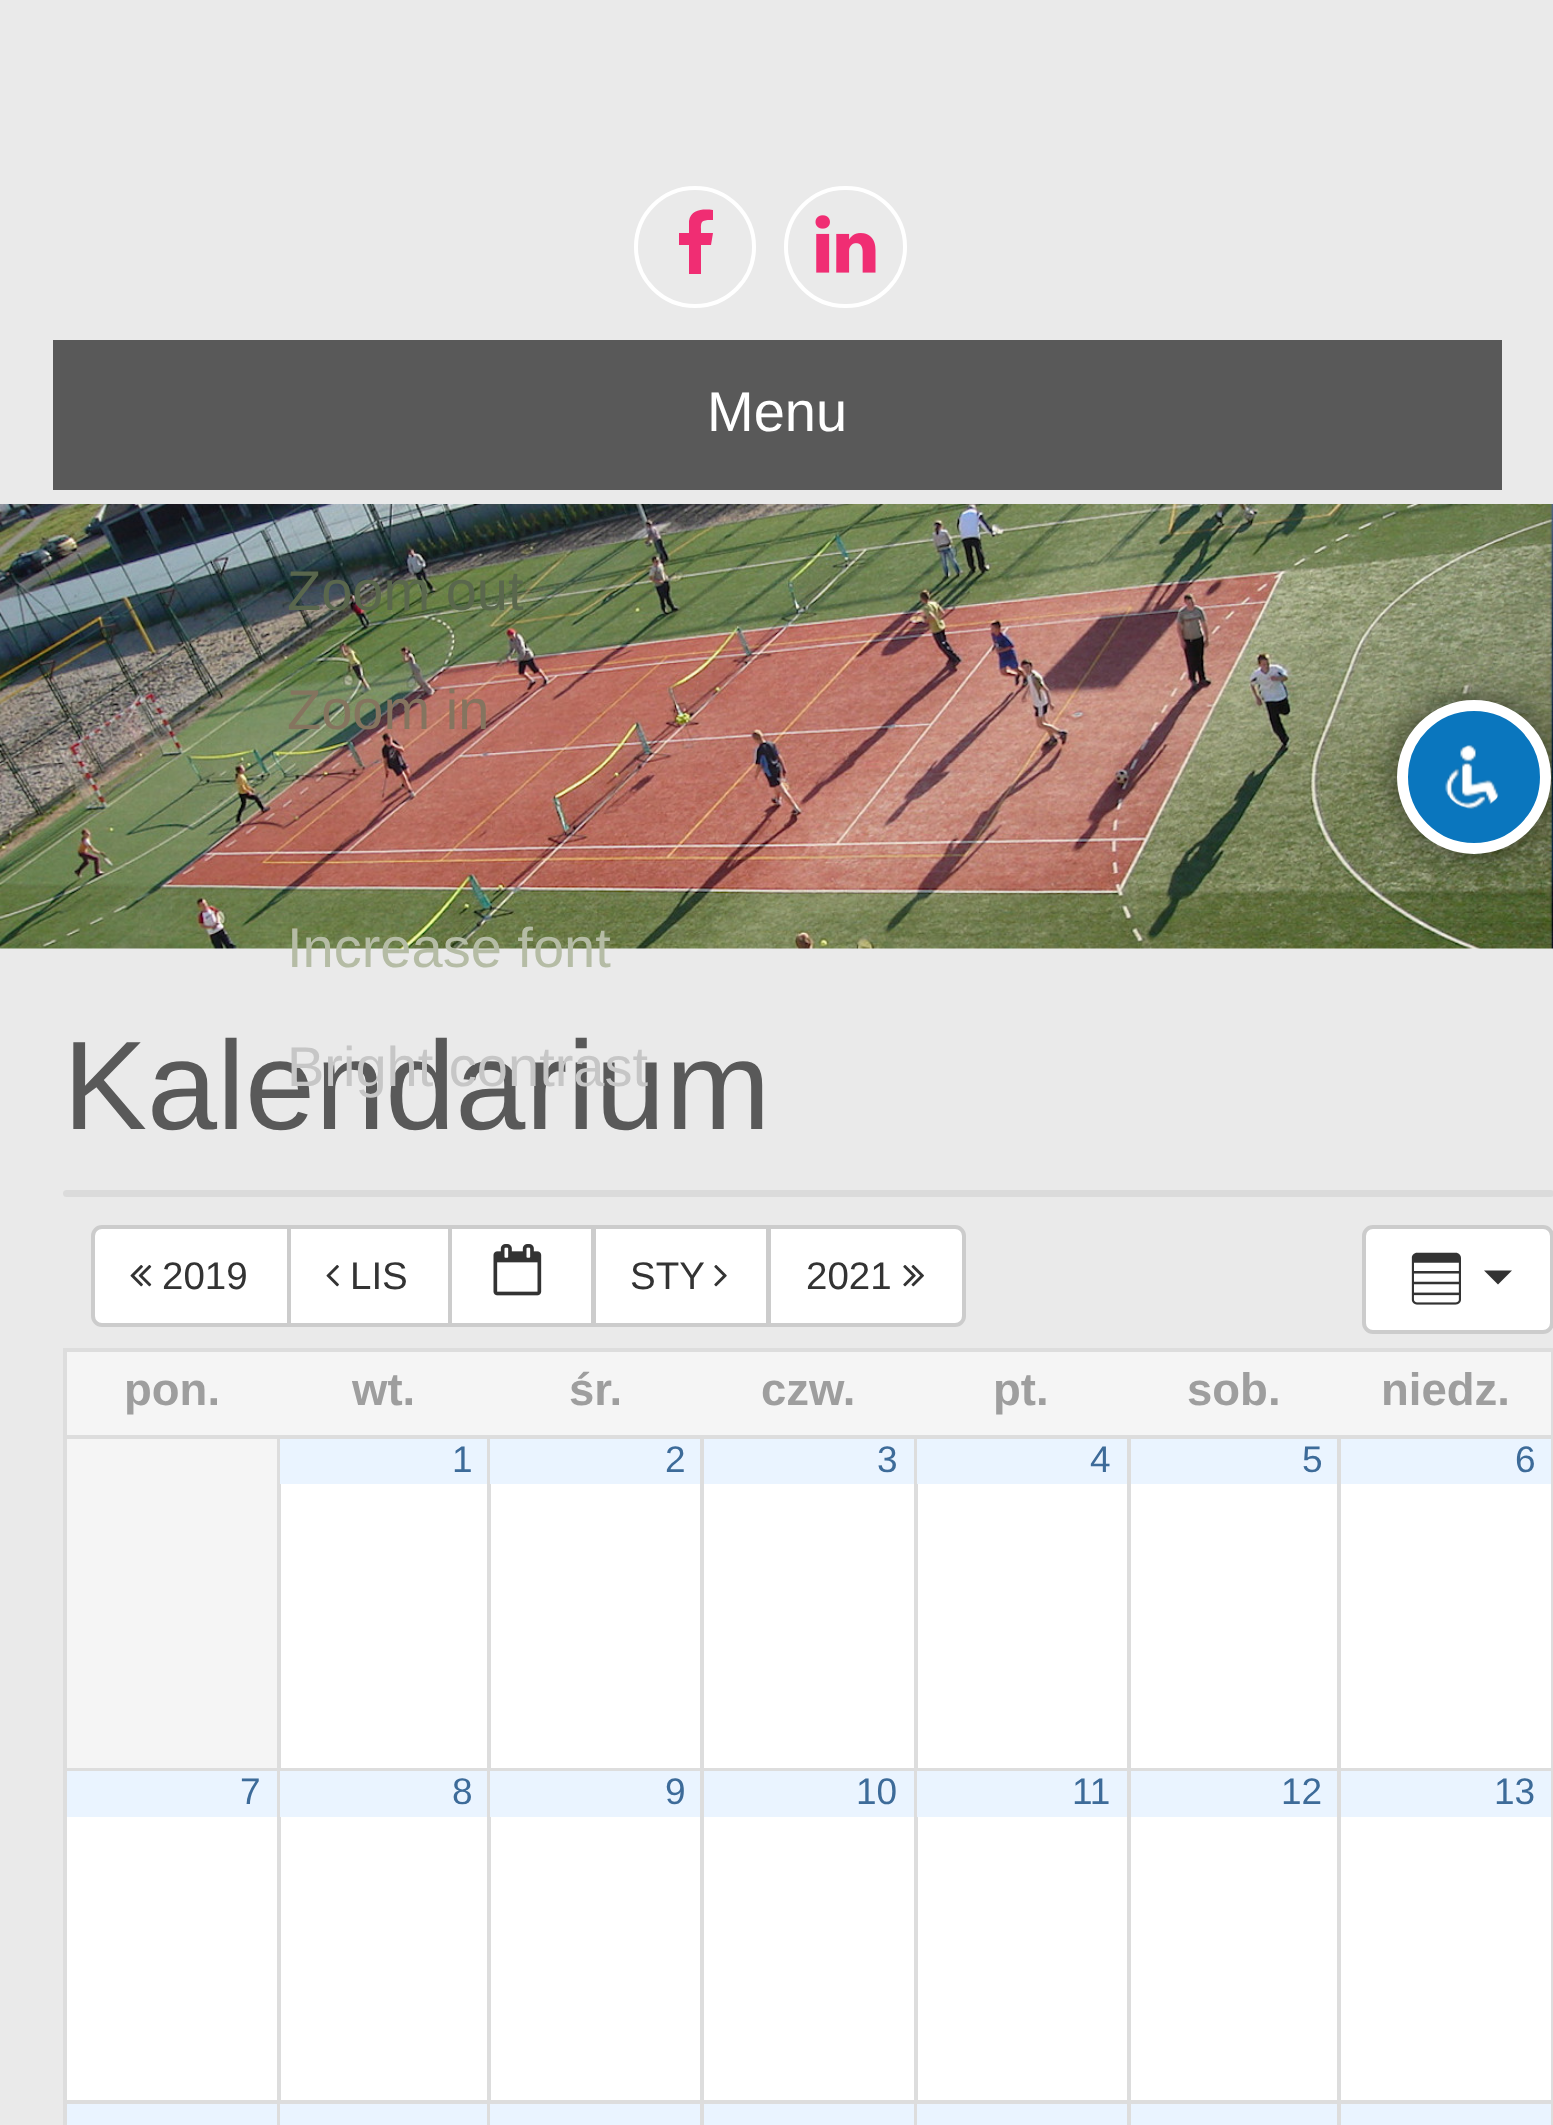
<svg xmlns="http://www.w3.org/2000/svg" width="1553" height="2125">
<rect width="100%" height="100%" fill="#eaeaea"/>
<circle cx="695" cy="247" r="59" fill="none" stroke="#fff" stroke-width="4"/>
<path d="M713 210v10c-13 0-12 1-12 13h12l-2 12h-10v29h-12v-29h-10v-12h10v-12c2-12 14-12 24-11z" fill="#f02d73"/>
<rect x="786" y="188" width="119" height="118" rx="59" fill="none" stroke="#fff" stroke-width="4"/>
<image x="815" y="215" width="61" height="58" href="media/1.png"/>
<rect x="53" y="340" width="1449" height="150" fill="#595959"/>
<text x="707" y="431" style="font-family:Liberation Sans;font-size:56px;fill:#fff">Menu</text>
<image x="0" y="504" width="1553" height="445" href="media/2.png"/>
<text x="63" y="1129" style="font-family:Liberation Sans;font-size:126px;fill:#595959">Kalendarium</text>
<rect x="63" y="1190" width="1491" height="7" rx="3.5" fill="#dbdbdb"/>
<path d="M102 1227h187v98h-187c-5 0-9-4-9-9v-80c0-5 4-9 9-9z" fill="#fff" stroke="#ccc" stroke-width="4"/>
<image x="130" y="1265" width="22" height="22" href="media/3.png"/>
<text x="162" y="1289" style="font-family:Liberation Sans;font-size:38.5px;fill:#333">2019</text>
<rect x="289" y="1227" width="161" height="98" fill="#fff" stroke="#ccc" stroke-width="4"/>
<image x="326" y="1265" width="13" height="22" href="media/4.png"/>
<text x="350" y="1289" style="font-family:Liberation Sans;font-size:38.5px;fill:#333">LIS</text>
<rect x="450" y="1227" width="143" height="98" fill="#fff" stroke="#ccc" stroke-width="4"/>
<image x="493" y="1244" width="49" height="52" href="media/5.png"/>
<rect x="594" y="1227" width="174" height="98" fill="#fff" stroke="#ccc" stroke-width="4"/>
<text x="630" y="1289" style="font-family:Liberation Sans;font-size:38.5px;fill:#333">STY</text>
<image x="714" y="1265" width="13" height="22" href="media/6.png"/>
<path d="M769 1227h186c5 0 9 4 9 9v80c0 5-4 9-9 9h-186z" fill="#fff" stroke="#ccc" stroke-width="4"/>
<text x="806" y="1289" style="font-family:Liberation Sans;font-size:38.5px;fill:#333">2021</text>
<image x="903" y="1265" width="21" height="22" href="media/7.png"/>
<rect x="1364" y="1227" width="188" height="105" rx="9" fill="#fff" stroke="#ccc" stroke-width="4"/>
<image x="1411" y="1252" width="50" height="53" href="media/8.png"/>
<path d="M1484 1270.5h28l-14 14z" fill="#333"/>
<rect x="67" y="1484" width="1484" height="616" fill="#fff"/>
<rect x="63" y="1348" width="1490" height="4" fill="#ddd"/>
<rect x="1551" y="1348" width="2" height="777" fill="#ddd"/>
<rect x="63" y="1348" width="4" height="777" fill="#ddd"/>
<rect x="67" y="1352" width="1484" height="83" fill="#f5f5f5"/>
<text x="124" y="1405" style="font-family:Liberation Sans;font-size:45.5px;font-weight:bold;fill:#9e9e9e">pon.</text>
<text x="352" y="1405" style="font-family:Liberation Sans;font-size:45.5px;font-weight:bold;fill:#9e9e9e">wt.</text>
<text x="569" y="1405" style="font-family:Liberation Sans;font-size:45.5px;font-weight:bold;fill:#9e9e9e">śr.</text>
<text x="761" y="1405" style="font-family:Liberation Sans;font-size:45.5px;font-weight:bold;fill:#9e9e9e">czw.</text>
<text x="993" y="1405" style="font-family:Liberation Sans;font-size:45.5px;font-weight:bold;fill:#9e9e9e">pt.</text>
<text x="1187" y="1405" style="font-family:Liberation Sans;font-size:45.5px;font-weight:bold;fill:#9e9e9e">sob.</text>
<text x="1381" y="1405" style="font-family:Liberation Sans;font-size:45.5px;font-weight:bold;fill:#9e9e9e">niedz.</text>
<rect x="67" y="1439" width="210" height="329" fill="#f5f5f5"/>
<rect x="1337" y="1435" width="216" height="4" fill="#ddd"/>
<rect x="1337" y="1768" width="216" height="4" fill="#ddd"/>
<rect x="1337" y="2100" width="216" height="4" fill="#ddd"/>
<rect x="1337" y="2100" width="4" height="25" fill="#ddd"/>
<rect x="1127" y="2100" width="214" height="4" fill="#ddd"/>
<rect x="1337" y="1768" width="4" height="336" fill="#ddd"/>
<rect x="1127" y="1768" width="214" height="4" fill="#ddd"/>
<rect x="1337" y="1435" width="4" height="336" fill="#ddd"/>
<rect x="1127" y="1435" width="214" height="4" fill="#ddd"/>
<rect x="1127" y="2100" width="4" height="25" fill="#ddd"/>
<rect x="914" y="2100" width="217" height="4" fill="#ddd"/>
<rect x="1127" y="1768" width="4" height="336" fill="#ddd"/>
<rect x="914" y="1768" width="217" height="4" fill="#ddd"/>
<rect x="1127" y="1435" width="4" height="336" fill="#ddd"/>
<rect x="914" y="1435" width="217" height="4" fill="#ddd"/>
<rect x="914" y="2100" width="3" height="25" fill="#ddd"/>
<rect x="700" y="2100" width="217" height="4" fill="#ddd"/>
<rect x="914" y="1768" width="4" height="336" fill="#ddd"/>
<rect x="700" y="1768" width="217" height="4" fill="#ddd"/>
<rect x="914" y="1435" width="4" height="336" fill="#ddd"/>
<rect x="700" y="1435" width="217" height="4" fill="#ddd"/>
<rect x="700" y="2100" width="4" height="25" fill="#ddd"/>
<rect x="487" y="2100" width="217" height="4" fill="#ddd"/>
<rect x="700" y="1768" width="4" height="336" fill="#ddd"/>
<rect x="487" y="1768" width="217" height="4" fill="#ddd"/>
<rect x="700" y="1435" width="4" height="336" fill="#ddd"/>
<rect x="487" y="1435" width="217" height="4" fill="#ddd"/>
<rect x="487" y="2100" width="3" height="25" fill="#ddd"/>
<rect x="277" y="2100" width="213" height="4" fill="#ddd"/>
<rect x="487" y="1768" width="4" height="336" fill="#ddd"/>
<rect x="277" y="1768" width="213" height="4" fill="#ddd"/>
<rect x="487" y="1435" width="4" height="336" fill="#ddd"/>
<rect x="277" y="1435" width="213" height="4" fill="#ddd"/>
<rect x="277" y="2100" width="3" height="25" fill="#ddd"/>
<rect x="63" y="2100" width="217" height="4" fill="#ddd"/>
<rect x="277" y="1768" width="4" height="336" fill="#ddd"/>
<rect x="63" y="1768" width="217" height="4" fill="#ddd"/>
<rect x="277" y="1435" width="4" height="336" fill="#ddd"/>
<rect x="63" y="1435" width="217" height="4" fill="#ddd"/>
<rect x="280" y="1439" width="207" height="45" fill="#eaf4ff"/>
<text x="452" y="1472" style="font-family:Liberation Sans;font-size:37px;fill:#3d6b99">1</text>
<rect x="490" y="1439" width="210" height="45" fill="#eaf4ff"/>
<text x="665" y="1472" style="font-family:Liberation Sans;font-size:37px;fill:#3d6b99">2</text>
<rect x="704" y="1439" width="210" height="45" fill="#eaf4ff"/>
<text x="877" y="1472" style="font-family:Liberation Sans;font-size:37px;fill:#3d6b99">3</text>
<rect x="917" y="1439" width="210" height="45" fill="#eaf4ff"/>
<text x="1090" y="1472" style="font-family:Liberation Sans;font-size:37px;fill:#3d6b99">4</text>
<rect x="1131" y="1439" width="206" height="45" fill="#eaf4ff"/>
<text x="1302" y="1472" style="font-family:Liberation Sans;font-size:37px;fill:#3d6b99">5</text>
<rect x="1341" y="1439" width="210" height="45" fill="#eaf4ff"/>
<text x="1515" y="1472" style="font-family:Liberation Sans;font-size:37px;fill:#3d6b99">6</text>
<rect x="67" y="1771" width="210" height="46" fill="#eaf4ff"/>
<text x="240" y="1804" style="font-family:Liberation Sans;font-size:37px;fill:#3d6b99">7</text>
<rect x="280" y="1771" width="207" height="46" fill="#eaf4ff"/>
<text x="452" y="1804" style="font-family:Liberation Sans;font-size:37px;fill:#3d6b99">8</text>
<rect x="490" y="1771" width="210" height="46" fill="#eaf4ff"/>
<text x="665" y="1804" style="font-family:Liberation Sans;font-size:37px;fill:#3d6b99">9</text>
<rect x="704" y="1771" width="210" height="46" fill="#eaf4ff"/>
<text x="856" y="1804" style="font-family:Liberation Sans;font-size:37px;fill:#3d6b99">10</text>
<rect x="917" y="1771" width="210" height="46" fill="#eaf4ff"/>
<text x="1072" y="1804" style="font-family:Liberation Sans;font-size:37px;fill:#3d6b99">11</text>
<rect x="1131" y="1771" width="206" height="46" fill="#eaf4ff"/>
<text x="1281" y="1804" style="font-family:Liberation Sans;font-size:37px;fill:#3d6b99">12</text>
<rect x="1341" y="1771" width="210" height="46" fill="#eaf4ff"/>
<text x="1494" y="1804" style="font-family:Liberation Sans;font-size:37px;fill:#3d6b99">13</text>
<rect x="67" y="2104" width="210" height="21" fill="#eaf4ff"/>
<rect x="280" y="2104" width="207" height="21" fill="#eaf4ff"/>
<rect x="490" y="2104" width="210" height="21" fill="#eaf4ff"/>
<rect x="704" y="2104" width="210" height="21" fill="#eaf4ff"/>
<rect x="917" y="2104" width="210" height="21" fill="#eaf4ff"/>
<rect x="1131" y="2104" width="206" height="21" fill="#eaf4ff"/>
<rect x="1341" y="2104" width="210" height="21" fill="#eaf4ff"/>
<text x="287" y="610" style="font-family:Liberation Sans;font-size:56px;fill:#5a674d">Zoom out</text>
<text x="287" y="729" style="font-family:Liberation Sans;font-size:56px;fill:#85745f">Zoom in</text>
<text x="287" y="967" style="font-family:Liberation Sans;font-size:56px;fill:#b5bca5">Increase font</text>
<text x="287" y="1086" style="font-family:Liberation Sans;font-size:56px;fill:#c6c6c6">Bright contrast</text>
<rect x="1397" y="700" width="154" height="154" rx="77" fill="#00000080" filter="blur(16px)"/>
<circle cx="1474" cy="777" r="71.5" fill="#0a76be" stroke="#fff" stroke-width="11"/>
<image x="1445" y="745" width="54" height="64" href="media/9.png"/>
</svg>
